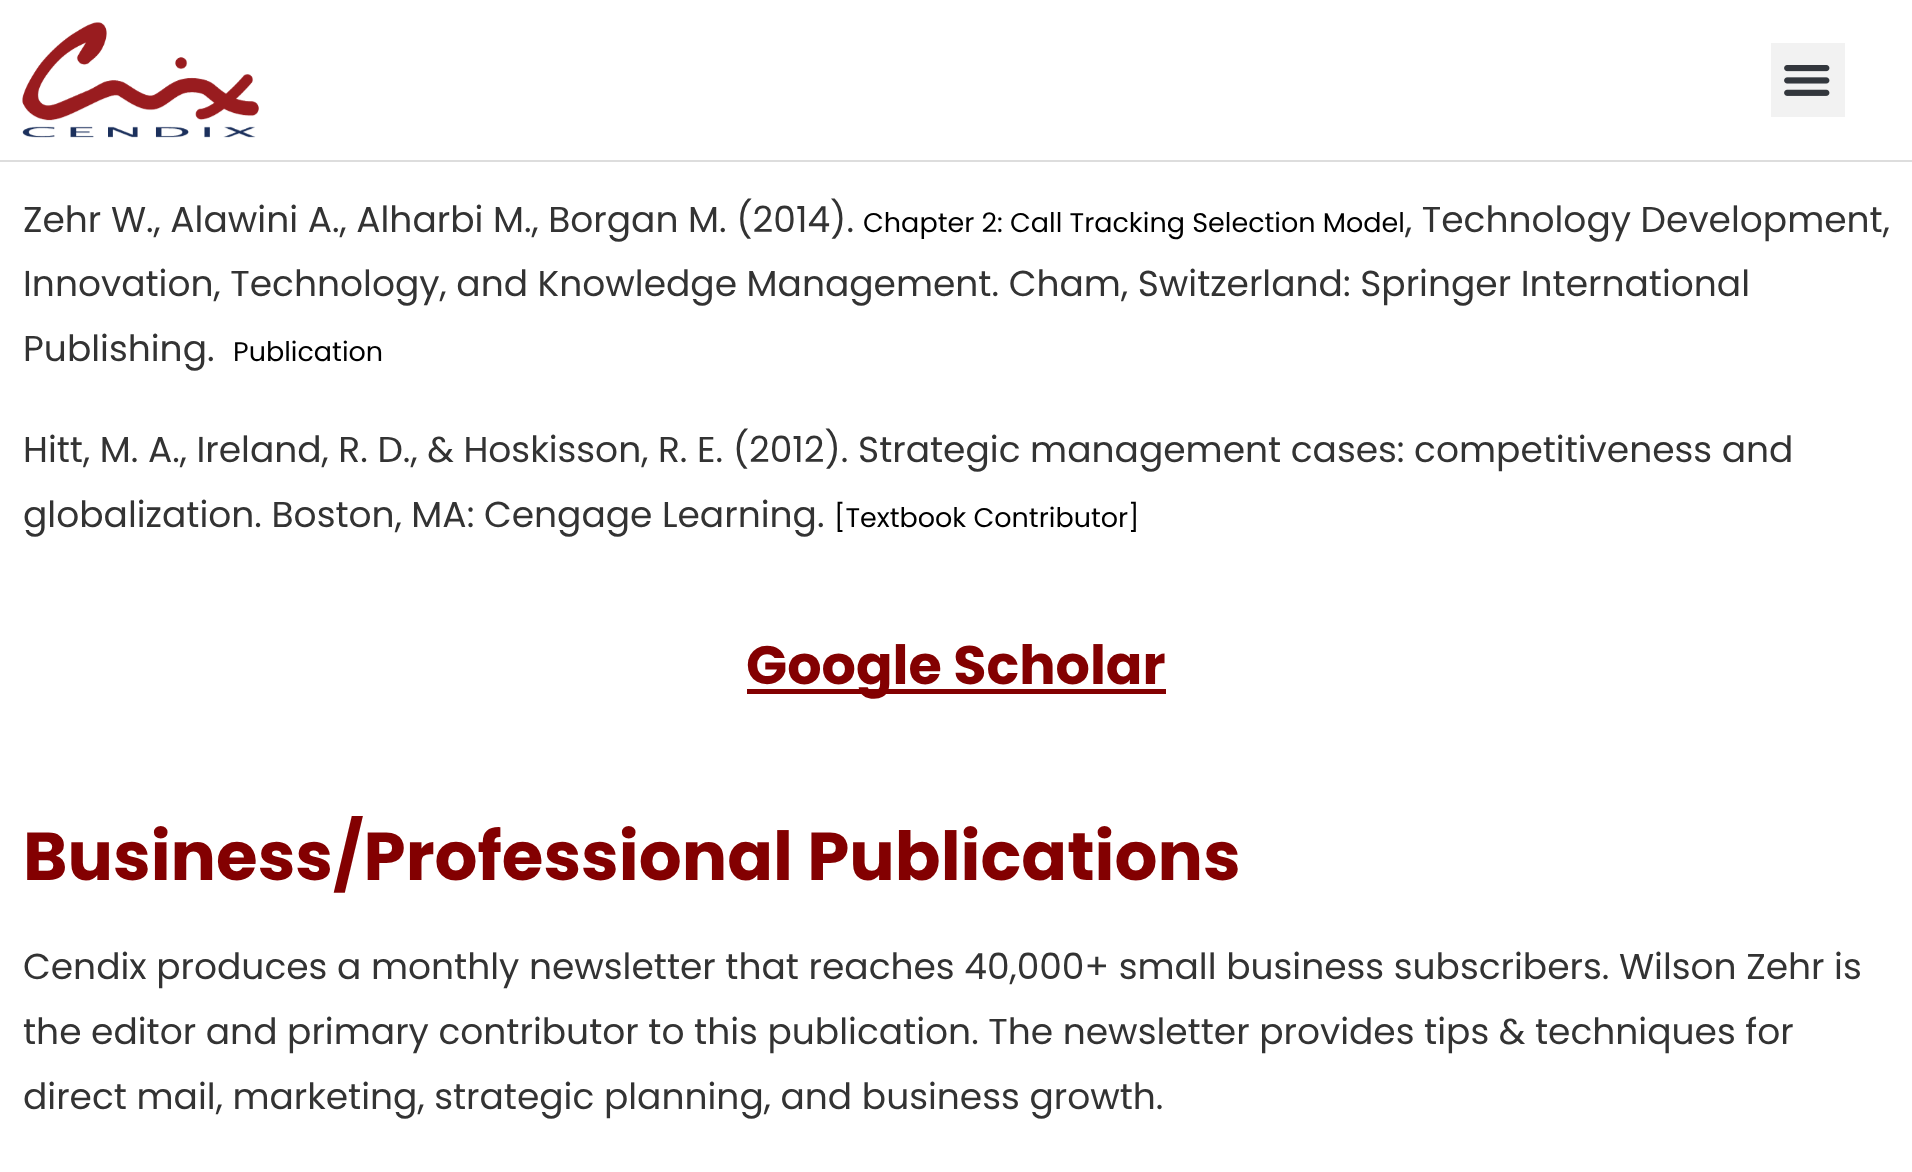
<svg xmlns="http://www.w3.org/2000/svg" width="1912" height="1172">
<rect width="100%" height="100%" fill="#fff"/>
<rect y="160" width="1912" height="2" fill="#ddd"/>
<image x="22" y="22" width="237" height="116" href="media/1.png"/>
<rect x="1771" y="43" width="74" height="74" fill="#f2f2f2"/>
<image x="1784" y="65" width="46" height="31" href="media/2.png"/>
<text x="23" y="232" style="font-family:Poppins;font-size:36px;fill:#333">Zehr W., Alawini A., Alharbi M., Borgan M. (2014).</text>
<text x="863" y="232" style="font-family:Poppins;font-size:27px;fill:#000">Chapter 2: Call Tracking Selection Model</text>
<text x="1405" y="232" style="font-family:Poppins;font-size:36px;fill:#333">, Technology Development,</text>
<text x="23" y="296" style="font-family:Poppins;font-size:36px;fill:#333">Innovation, Technology, and Knowledge Management. Cham, Switzerland: Springer International</text>
<text x="23" y="361" style="font-family:Poppins;font-size:36px;fill:#333">Publishing.</text>
<text x="233" y="361" style="font-family:Poppins;font-size:27px;fill:#000">Publication</text>
<text x="23" y="462" style="font-family:Poppins;font-size:36px;fill:#333">Hitt, M. A., Ireland, R. D., &amp; Hoskisson, R. E. (2012). Strategic management cases: competitiveness and</text>
<text x="23" y="527" style="font-family:Poppins;font-size:36px;fill:#333">globalization. Boston, MA: Cengage Learning.</text>
<text x="834" y="527" style="font-family:Poppins;font-size:27px;fill:#000">[Textbook Contributor]</text>
<rect x="747" y="689" width="419" height="5" fill="#830001"/>
<text x="746" y="684" style="font-family:Poppins;font-size:54px;font-weight:bold;fill:#830001">Google Scholar</text>
<text x="23" y="880" style="font-family:Poppins;font-size:67.5px;font-weight:bold;fill:#830001">Business/Professional Publications</text>
<text x="23" y="979" style="font-family:Poppins;font-size:36px;fill:#333">Cendix produces a monthly newsletter that reaches 40,000+ small business subscribers. Wilson Zehr is</text>
<text x="23" y="1044" style="font-family:Poppins;font-size:36px;fill:#333">the editor and primary contributor to this publication. The newsletter provides tips &amp; techniques for</text>
<text x="23" y="1109" style="font-family:Poppins;font-size:36px;fill:#333">direct mail, marketing, strategic planning, and business growth.</text>
</svg>
